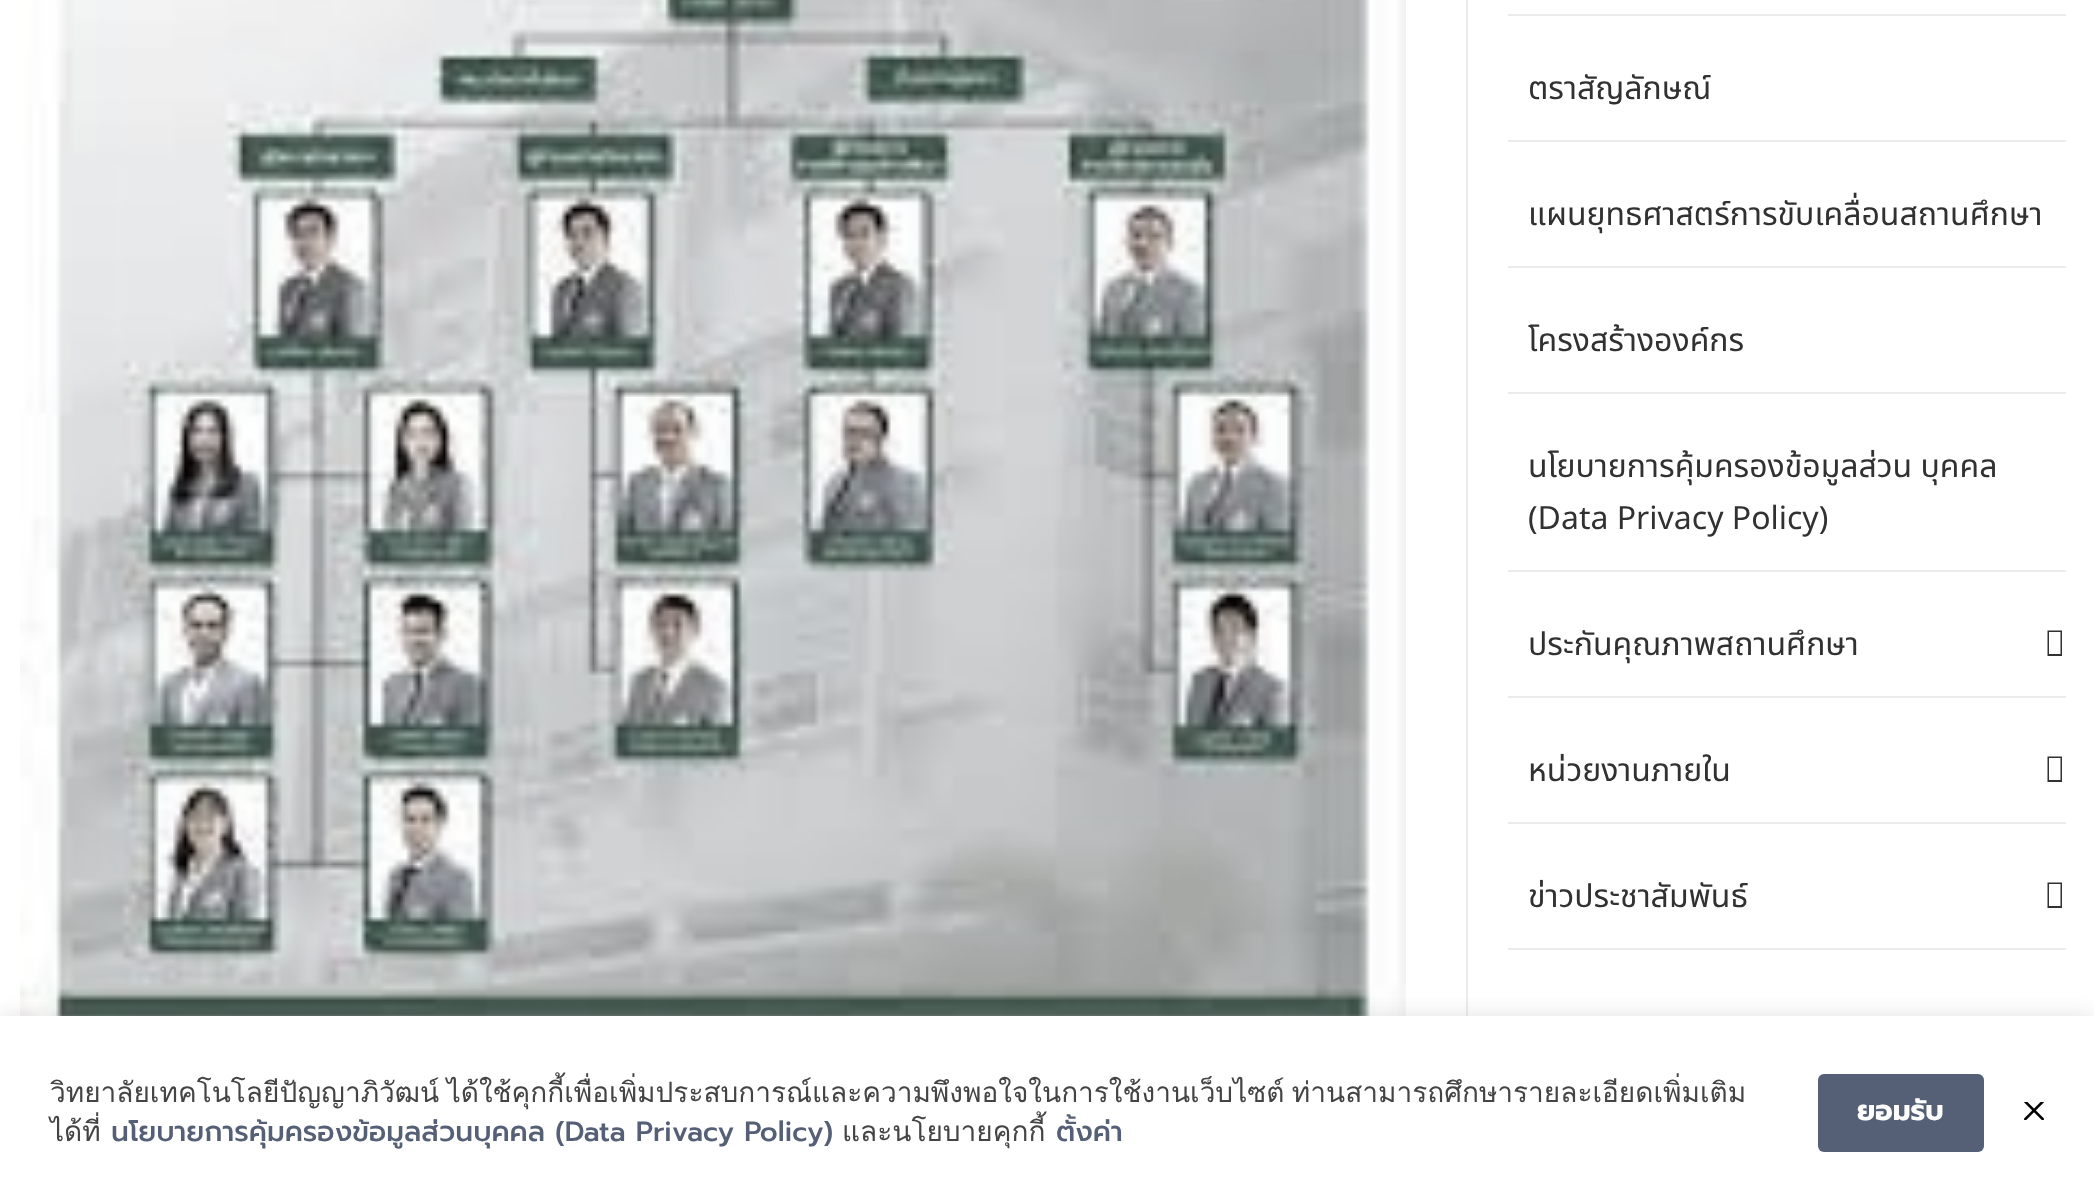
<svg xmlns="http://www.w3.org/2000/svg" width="2094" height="1181">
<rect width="100%" height="100%" fill="#fff"/>
<image x="20" y="0" width="1386" height="1016" href="media/1.png"/>
<rect x="1466" width="2" height="1016" fill="#ebebeb"/>
<rect x="1508" y="14" width="558" height="2" fill="#ebebeb"/>
<rect x="1508" y="140" width="558" height="2" fill="#ebebeb"/>
<text x="1528" y="99" style="font-family:Noto Sans Thai;font-size:32px;fill:#313132">ตราสัญลักษณ์</text>
<rect x="1508" y="266" width="558" height="2" fill="#ebebeb"/>
<text x="1528" y="225" style="font-family:Noto Sans Thai;font-size:32px;fill:#313132">แผนยุทธศาสตร์การขับเคลื่อนสถานศึกษา</text>
<rect x="1508" y="392" width="558" height="2" fill="#ebebeb"/>
<text x="1528" y="351" style="font-family:Noto Sans Thai;font-size:32px;fill:#313132">โครงสร้างองค์กร</text>
<rect x="1508" y="570" width="558" height="2" fill="#ebebeb"/>
<text x="1528" y="477" style="font-family:Noto Sans Thai;font-size:32px;fill:#313132">นโยบายการคุ้มครองข้อมูลส่วน บุคคล</text>
<text x="1528" y="529" style="font-family:Noto Sans Thai;font-size:32px;fill:#313132">(Data Privacy Policy)</text>
<rect x="1508" y="696" width="558" height="2" fill="#ebebeb"/>
<text x="1528" y="655" style="font-family:Noto Sans Thai;font-size:32px;fill:#313132">ประกันคุณภาพสถานศึกษา</text>
<path d="M2047.5 656v-25.5h14.5v25.5zm1.5-2h11.5v-22h-11.5z" fill="#313132"/>
<rect x="1508" y="822" width="558" height="2" fill="#ebebeb"/>
<text x="1528" y="781" style="font-family:Noto Sans Thai;font-size:32px;fill:#313132">หน่วยงานภายใน</text>
<path d="M2047.5 782v-25.5h14.5v25.5zm1.5-2h11.5v-22h-11.5z" fill="#313132"/>
<rect x="1508" y="948" width="558" height="2" fill="#ebebeb"/>
<text x="1528" y="907" style="font-family:Noto Sans Thai;font-size:32px;fill:#313132">ข่าวประชาสัมพันธ์</text>
<path d="M2047.5 908v-25.5h14.5v25.5zm1.5-2h11.5v-22h-11.5z" fill="#313132"/>
<rect y="1014" width="2094" height="166" fill="#ababab4d" filter="blur(10px)"/>
<rect y="1016" width="2094" height="165" fill="#fff"/>
<text x="50" y="1102" word-spacing="-2" style="font-family:Loma;font-size:28px;fill:#444">วิทยาลัยเทคโนโลยีปัญญาภิวัฒน์ ได้ใช้คุกกี้เพื่อเพิ่มประสบการณ์และความพึงพอใจในการใช้งานเว็บไซต์ ท่านสามารถศึกษารายละเอียดเพิ่มเติม</text>
<text x="50" y="1141" style="font-family:Loma;font-size:28px;fill:#444">ได้ที่</text>
<text x="111" y="1141" style="font-family:Prompt;font-size:28px;font-weight:500;fill:#555f76">นโยบายการคุ้มครองข้อมูลส่วนบุคคล (Data Privacy Policy)</text>
<text x="842" y="1141" style="font-family:Loma;font-size:28px;fill:#444">และนโยบายคุกกี้</text>
<text x="1056" y="1141" style="font-family:Prompt;font-size:28px;font-weight:500;fill:#555f76">ตั้งค่า</text>
<rect x="1818" y="1074" width="166" height="78" rx="6" fill="#555f76"/>
<text x="1857" y="1120" style="font-family:Prompt;font-size:28px;font-weight:bold;fill:#fff">ยอมรับ</text>
<image x="2024" y="1102" width="20" height="18" href="media/2.png"/>
</svg>
